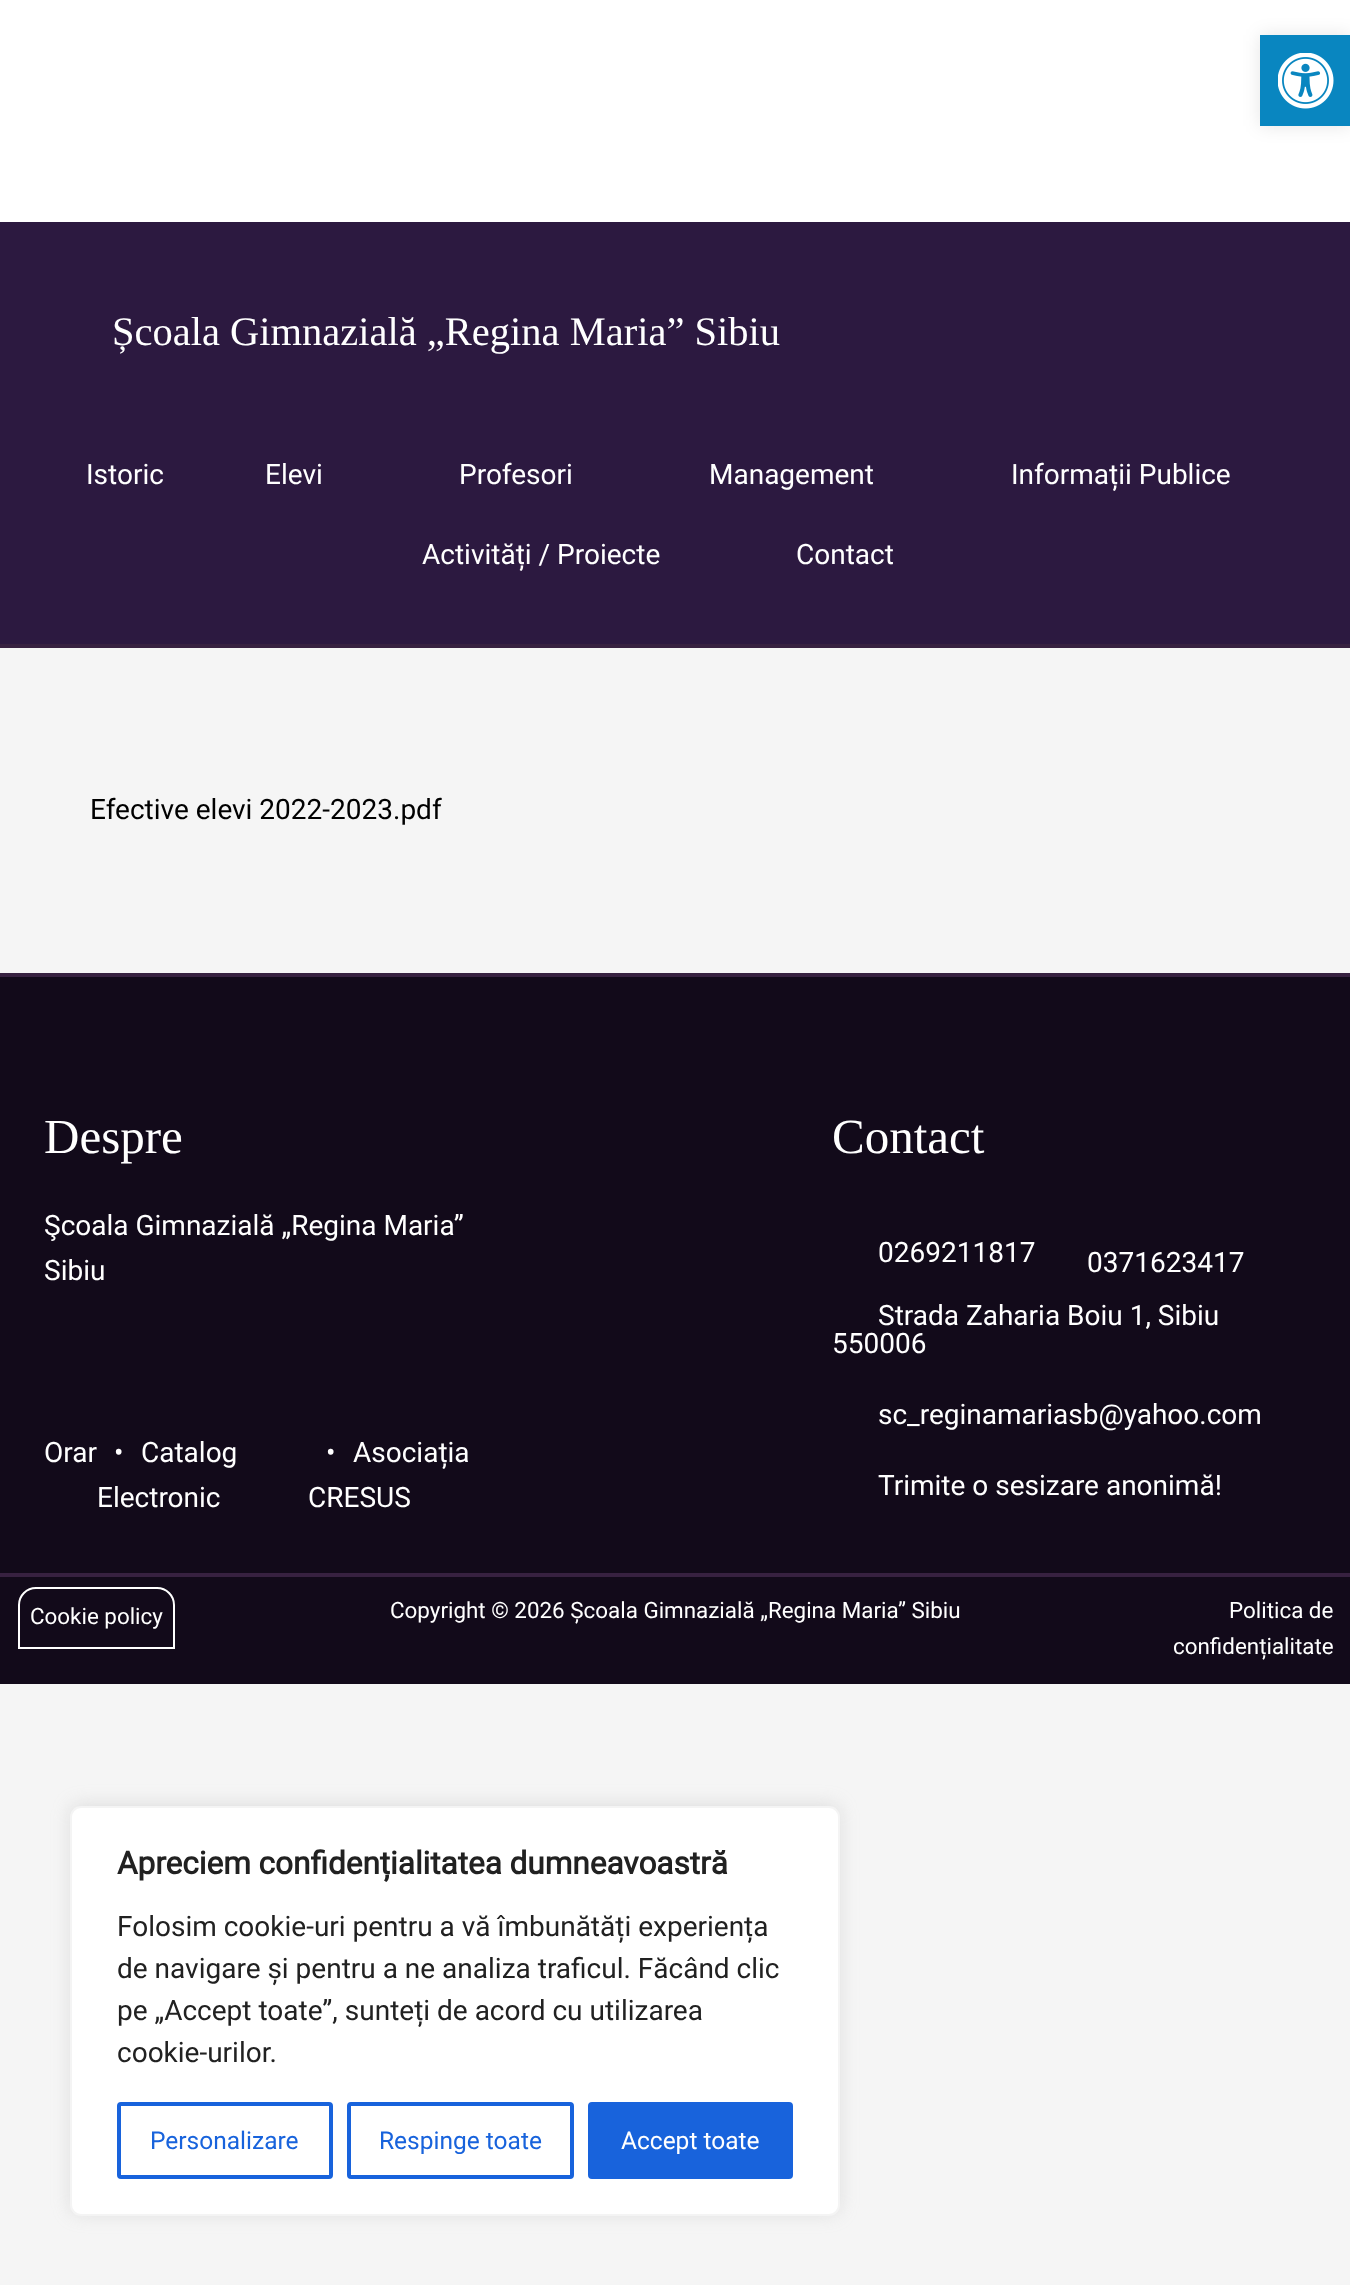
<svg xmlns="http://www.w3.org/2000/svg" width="1350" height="2285">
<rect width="100%" height="100%" fill="#f5f5f5"/>
<rect width="1350" height="222" fill="#fff"/>
<rect x="1260" y="35" width="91" height="91" fill="#0000001a" filter="blur(9px)"/>
<rect x="1260" y="35" width="90" height="91" fill="#0986c0"/>
<image x="1278" y="53" width="56" height="56" href="media/1.png"/>
<rect y="222" width="1350" height="422" fill="#2c1940"/>
<rect y="644" width="1350" height="4" fill="#372140"/>
<text x="112" y="345" style="font-family:Liberation Serif;font-size:40.5px;fill:#fff">Școala Gimnazială „Regina Maria” Sibiu</text>
<text x="86" y="484" style="font-family:Roboto;font-size:28px;fill:#fff">Istoric</text>
<text x="265" y="484" style="font-family:Roboto;font-size:28px;fill:#fff">Elevi</text>
<text x="459" y="484" style="font-family:Roboto;font-size:28px;fill:#fff">Profesori</text>
<text x="709" y="484" style="font-family:Roboto;font-size:28px;fill:#fff">Management</text>
<text x="1011" y="484" style="font-family:Roboto;font-size:28px;fill:#fff">Informații Publice</text>
<text x="422" y="564" style="font-family:Roboto;font-size:28px;fill:#fff">Activități / Proiecte</text>
<text x="796" y="564" style="font-family:Roboto;font-size:28px;fill:#fff">Contact</text>
<text x="90" y="819" style="font-family:Roboto;font-size:28px;fill:#000">Efective elevi 2022-2023.pdf</text>
<rect y="977" width="1350" height="707" fill="#120a1a"/>
<rect y="973" width="1350" height="4" fill="#372140"/>
<rect y="1573" width="1350" height="4" fill="#372140"/>
<text x="44" y="1153" style="font-family:Liberation Serif;font-size:49px;fill:#fff">Despre</text>
<text x="44" y="1235" style="font-family:Roboto;font-size:28px;fill:#fff">Şcoala Gimnazială „Regina Maria”</text>
<text x="44" y="1280" style="font-family:Roboto;font-size:28px;fill:#fff">Sibiu</text>
<text x="44" y="1462" style="font-family:Roboto;font-size:28px;fill:#fff">Orar</text>
<text x="114" y="1462" style="font-family:Roboto;font-size:28px;fill:#fff">•</text>
<text x="141" y="1462" style="font-family:Roboto;font-size:28px;fill:#fff">Catalog</text>
<text x="97" y="1507" style="font-family:Roboto;font-size:28px;fill:#fff">Electronic</text>
<text x="326" y="1462" style="font-family:Roboto;font-size:28px;fill:#fff">•</text>
<text x="353" y="1462" style="font-family:Roboto;font-size:28px;fill:#fff">Asociația</text>
<text x="308" y="1507" style="font-family:Roboto;font-size:28px;fill:#fff">CRESUS</text>
<text x="832" y="1153" style="font-family:Liberation Serif;font-size:49px;fill:#fff">Contact</text>
<text x="878" y="1262" style="font-family:Roboto;font-size:28px;fill:#fff">0269211817</text>
<text x="1087" y="1272" style="font-family:Roboto;font-size:28px;fill:#fff">0371623417</text>
<text x="878" y="1325" style="font-family:Roboto;font-size:28px;fill:#fff">Strada Zaharia Boiu 1, Sibiu</text>
<text x="832" y="1353" style="font-family:Roboto;font-size:28px;fill:#fff">550006</text>
<text x="878" y="1424" style="font-family:Roboto;font-size:28px;fill:#fff">sc_reginamariasb@yahoo.com</text>
<text x="878" y="1495" style="font-family:Roboto;font-size:28px;fill:#fff">Trimite o sesizare anonimă!</text>
<path d="M36 1588h121c9.5 0 17 7.5 17 17v43h-155v-43c0-9.5 7.5-17 17-17z" fill="none" stroke="#fff" stroke-width="2"/>
<text x="30" y="1624" style="font-family:Roboto;font-size:22.4px;fill:#fff">Cookie policy</text>
<text x="390" y="1618" style="font-family:Roboto;font-size:22.4px;fill:#fff">Copyright © 2026 Școala Gimnazială „Regina Maria” Sibiu</text>
<text x="1229" y="1618" style="font-family:Roboto;font-size:22.4px;fill:#fff">Politica de</text>
<text x="1173" y="1654" style="font-family:Roboto;font-size:22.4px;fill:#fff">confidențialitate</text>
<rect x="70" y="1804" width="770" height="410" rx="11" fill="#acabab4d" filter="blur(9px)"/>
<rect x="71" y="1807" width="768" height="408" rx="10" fill="#fff" stroke="#f4f4f4" stroke-width="2"/>
<text x="117" y="1874" style="font-family:Roboto;font-size:31.5px;font-weight:bold;fill:#212121">Apreciem confidențialitatea dumneavoastră</text>
<text x="117" y="1936" style="font-family:Roboto;font-size:28px;fill:#212121">Folosim cookie-uri pentru a vă îmbunătăți experiența</text>
<text x="117" y="1978" style="font-family:Roboto;font-size:28px;fill:#212121">de navigare și pentru a ne analiza traficul. Făcând clic</text>
<text x="117" y="2020" style="font-family:Roboto;font-size:28px;fill:#212121">pe „Accept toate”, sunteți de acord cu utilizarea</text>
<text x="117" y="2062" style="font-family:Roboto;font-size:28px;fill:#212121">cookie-urilor.</text>
<rect x="119" y="2104" width="212" height="73" rx="2" fill="none" stroke="#1863dc" stroke-width="4"/>
<text x="150" y="2149" style="font-family:Roboto;font-size:24.5px;fill:#1863dc">Personalizare</text>
<rect x="349" y="2104" width="223" height="73" rx="2" fill="none" stroke="#1863dc" stroke-width="4"/>
<text x="379" y="2149" style="font-family:Roboto;font-size:24.5px;fill:#1863dc">Respinge toate</text>
<rect x="590" y="2104" width="201" height="73" rx="2" fill="#1863dc" stroke="#1863dc" stroke-width="4"/>
<text x="621" y="2149" style="font-family:Roboto;font-size:24.5px;fill:#fff">Accept toate</text>
</svg>
